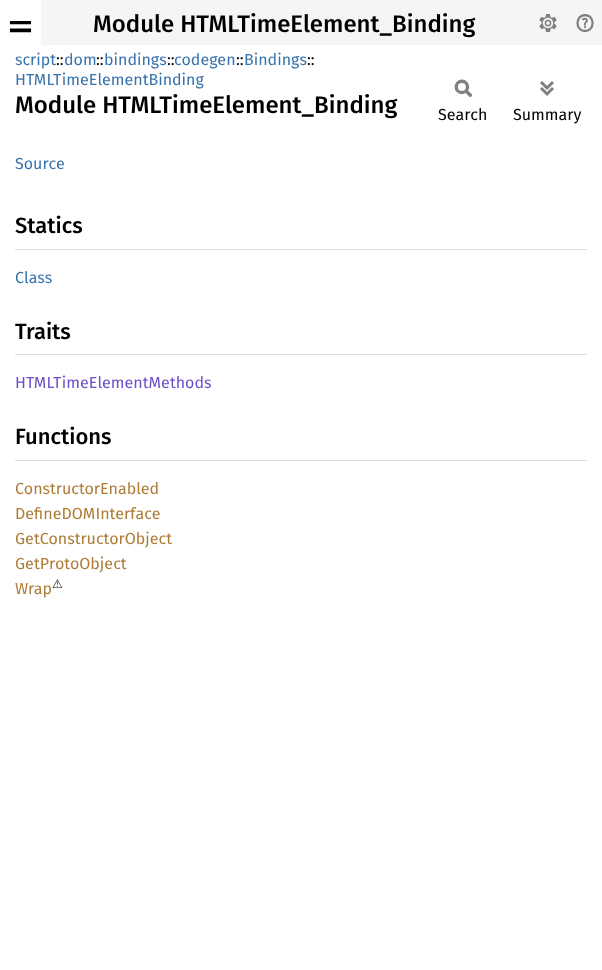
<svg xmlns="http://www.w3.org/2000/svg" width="602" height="970">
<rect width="100%" height="100%" fill="#fff"/>
<rect x="41" width="561" height="45" fill="#f5f5f5"/>
<image x="9" y="21" width="23" height="12" href="media/1.png"/>
<text x="93" y="32" style="font-family:Fira Sans;font-size:24px;font-weight:500;fill:#000">Module HTMLTimeElement_Binding</text>
<image x="539" y="14" width="18" height="18" href="media/2.png"/>
<image x="576" y="14" width="18" height="18" href="media/3.png"/>
<text x="15" y="65" style="font-family:Fira Sans;font-size:16px;fill:#3873ad">script</text>
<text x="56" y="65" style="font-family:Fira Sans;font-size:16px;fill:#000">::</text>
<text x="64" y="65" style="font-family:Fira Sans;font-size:16px;fill:#3873ad">dom</text>
<text x="96" y="65" style="font-family:Fira Sans;font-size:16px;fill:#000">::</text>
<text x="104" y="65" style="font-family:Fira Sans;font-size:16px;fill:#3873ad">bindings</text>
<text x="167" y="65" style="font-family:Fira Sans;font-size:16px;fill:#000">::</text>
<text x="174" y="65" style="font-family:Fira Sans;font-size:16px;fill:#3873ad">codegen</text>
<text x="236" y="65" style="font-family:Fira Sans;font-size:16px;fill:#000">::</text>
<text x="244" y="65" style="font-family:Fira Sans;font-size:16px;fill:#3873ad">Bindings</text>
<text x="307" y="65" style="font-family:Fira Sans;font-size:16px;fill:#000">::</text>
<text x="15" y="85" style="font-family:Fira Sans;font-size:16px;fill:#3873ad">HTMLTimeElementBinding</text>
<text x="15" y="113" style="font-family:Fira Sans;font-size:24px;font-weight:500;fill:#000">Module HTMLTimeElement_Binding</text>
<image x="454" y="79" width="18" height="18" href="media/4.png"/>
<text x="438" y="120" style="font-family:Fira Sans;font-size:16px;fill:#000">Search</text>
<image x="540" y="81" width="14" height="15" href="media/5.png"/>
<text x="513" y="120" style="font-family:Fira Sans;font-size:16px;fill:#000">Summary</text>
<text x="15" y="169" style="font-family:Fira Sans;font-size:16px;fill:#3873ad">Source</text>
<rect x="15" y="249" width="572" height="1" fill="#ddd"/>
<text x="15" y="233" style="font-family:Fira Sans;font-size:22px;font-weight:500;fill:#000">Statics</text>
<text x="15" y="283" style="font-family:Fira Sans;font-size:16px;fill:#3873ad">Class</text>
<rect x="15" y="354" width="572" height="1" fill="#ddd"/>
<text x="15" y="339" style="font-family:Fira Sans;font-size:22px;font-weight:500;fill:#000">Traits</text>
<text x="15" y="388" style="font-family:Fira Sans;font-size:16px;fill:#6e4fc9">HTMLTimeElementMethods</text>
<rect x="15" y="460" width="572" height="1" fill="#ddd"/>
<text x="15" y="444" style="font-family:Fira Sans;font-size:22px;font-weight:500;fill:#000">Functions</text>
<text x="15" y="494" style="font-family:Fira Sans;font-size:16px;fill:#ad7c37">ConstructorEnabled</text>
<text x="15" y="519" style="font-family:Fira Sans;font-size:16px;fill:#ad7c37">DefineDOMInterface</text>
<text x="15" y="544" style="font-family:Fira Sans;font-size:16px;fill:#ad7c37">GetConstructorObject</text>
<text x="15" y="569" style="font-family:Fira Sans;font-size:16px;fill:#ad7c37">GetProtoObject</text>
<text x="15" y="594" style="font-family:Fira Sans;font-size:16px;fill:#ad7c37">Wrap</text>
<text x="52" y="588" style="font-family:DejaVu Sans;font-size:12px;fill:#000">⚠</text>
</svg>
